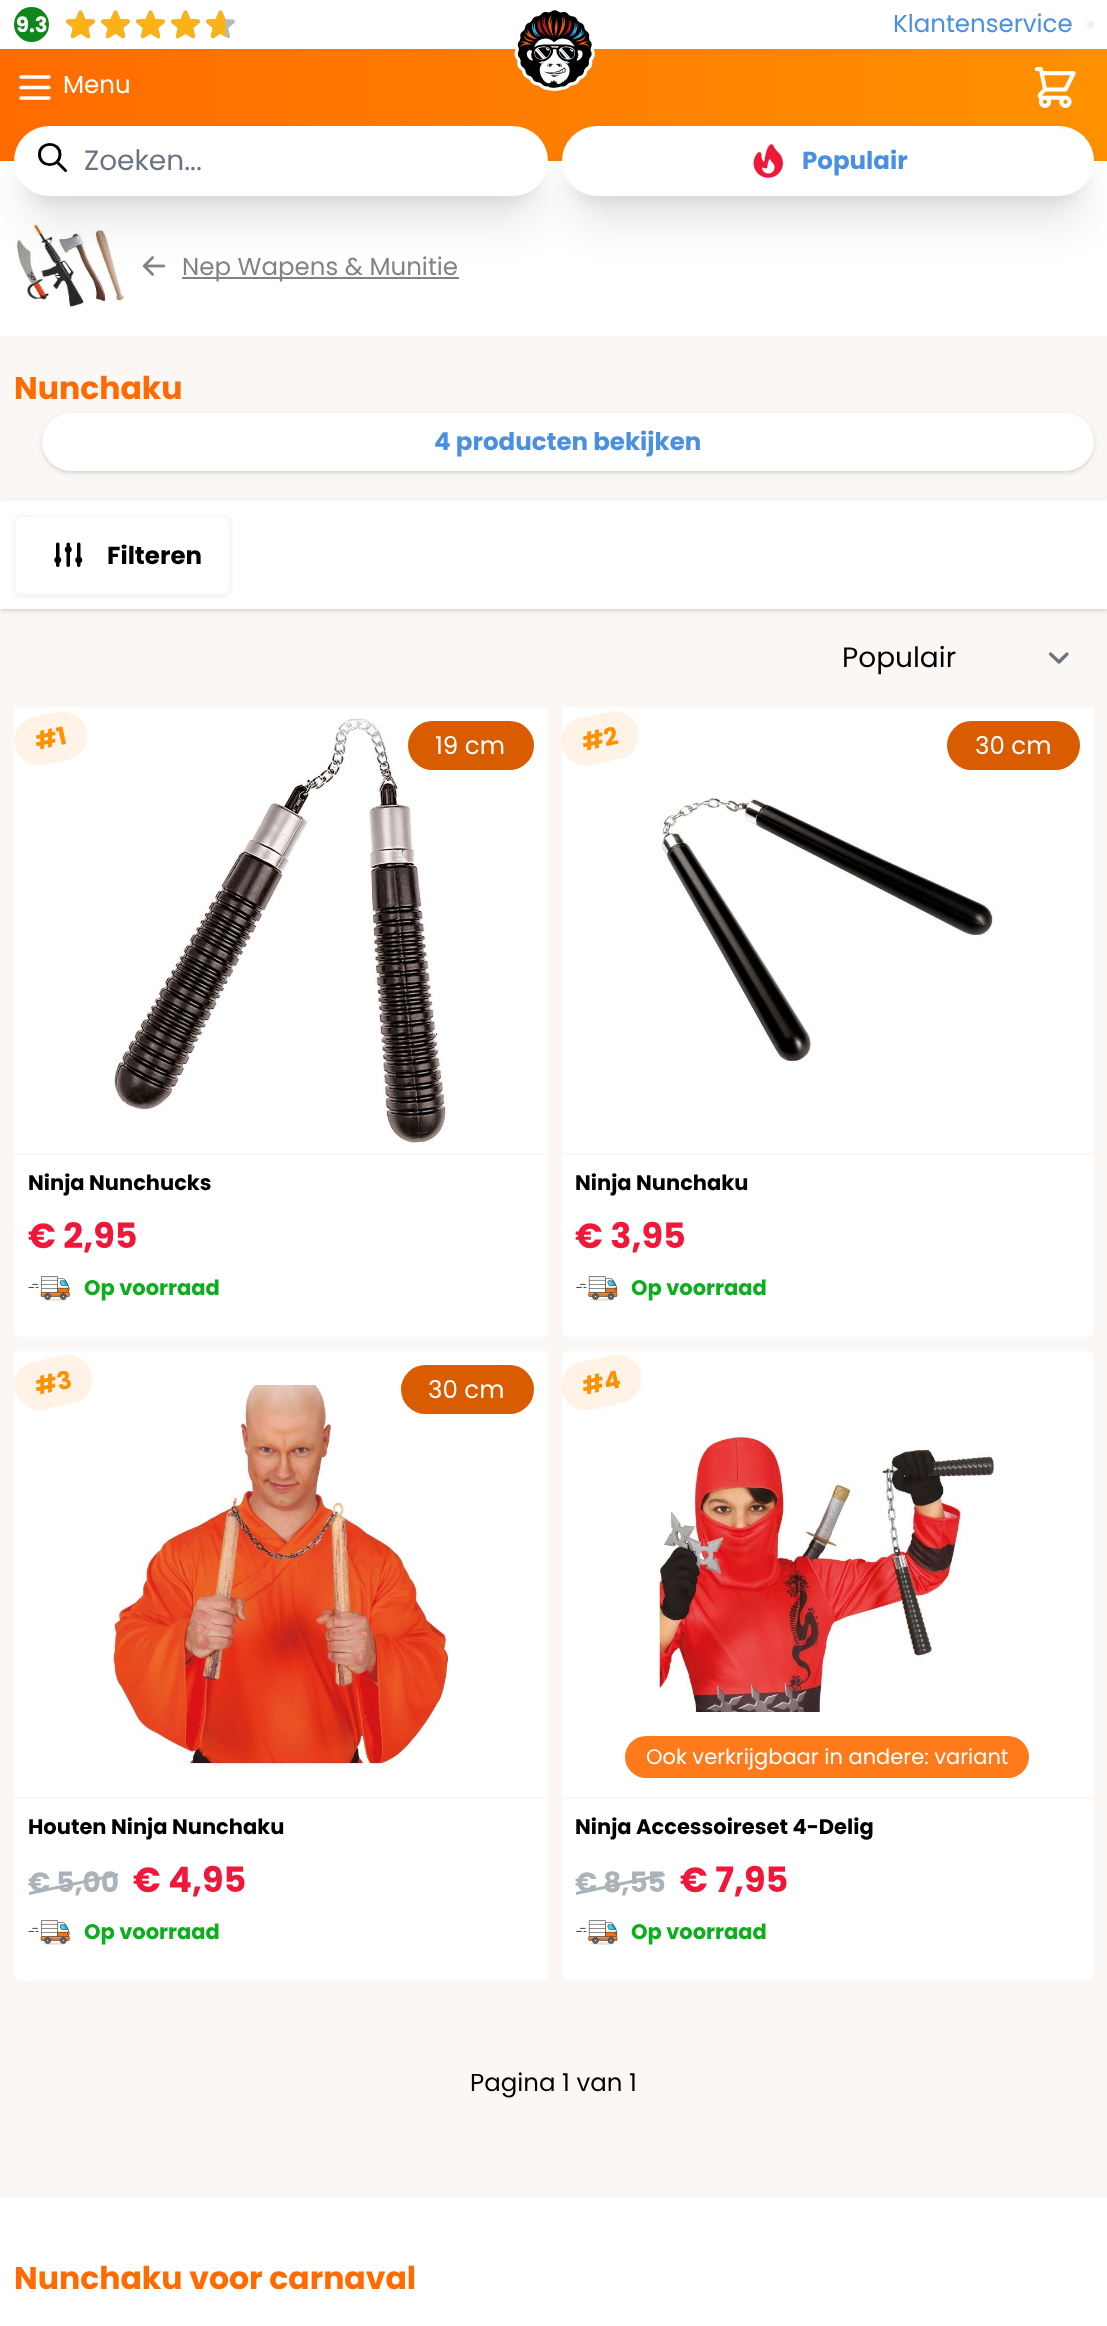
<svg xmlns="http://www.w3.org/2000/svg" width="1107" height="2326">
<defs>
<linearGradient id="g1" gradientUnits="userSpaceOnUse" x1="0" y1="123" x2="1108" y2="122"><stop offset="0" stop-color="#ff6b00"/><stop offset="1" stop-color="#ff9100"/></linearGradient>
<linearGradient id="g2" gradientUnits="userSpaceOnUse" x1="281" y1="707" x2="281" y2="770"><stop offset="0" stop-color="#fff"/><stop offset="1" stop-color="#fff" stop-opacity="0"/></linearGradient>
<linearGradient id="g3" gradientUnits="userSpaceOnUse" x1="828" y1="707" x2="828" y2="770"><stop offset="0" stop-color="#fff"/><stop offset="1" stop-color="#fff" stop-opacity="0"/></linearGradient>
<linearGradient id="g4" gradientUnits="userSpaceOnUse" x1="281" y1="1351" x2="281" y2="1414"><stop offset="0" stop-color="#fff"/><stop offset="1" stop-color="#fff" stop-opacity="0"/></linearGradient>
</defs>
<rect width="100%" height="100%" fill="#fff"/>
<circle cx="31.5" cy="24.5" r="17.5" fill="#0d8719"/>
<text x="16" y="32" style="font-family:Poppins;font-size:21px;font-weight:bold;fill:#fff">9.3</text>
<image x="66" y="10" width="169" height="29" href="media/1.png"/>
<image x="66" y="10" width="160" height="29" href="media/2.png"/>
<text x="893" y="32" style="font-family:Poppins;font-size:24.5px;fill:#4a90e2">Klantenservice</text>
<circle cx="1090.5" cy="24.5" r="3.5" fill="#e6f6e8"/>
<rect y="49" width="1107" height="112" fill="url(#g1)"/>
<path d="M21 77h28m-28 10.5h28m-28 10.5h28" fill="none" stroke="#fff" stroke-width="3.5" stroke-linecap="round" stroke-linejoin="round"/>
<text x="63" y="93" style="font-family:Poppins;font-size:24.5px;fill:#fff">Menu</text>
<image x="514" y="10" width="81" height="81" href="media/3.png"/>
<rect x="571" y="170" width="514" height="52" rx="26" fill="#0000001a" filter="blur(22px)"/>
<image x="1034" y="67" width="42" height="41" href="media/4.png"/>
<rect x="572" y="151" width="511" height="49" rx="24.5" fill="#0000001a" filter="blur(9px)"/>
<rect x="562" y="126" width="532" height="70" rx="35" fill="#fff"/>
<image x="16" y="224" width="108" height="84" href="media/6.png"/>
<rect x="25" y="151" width="512" height="49" rx="24.5" fill="#0000001a" filter="blur(9px)"/>
<image x="142" y="256" width="24" height="20" href="media/7.png"/>
<rect x="182" y="277" width="277" height="2" fill="#828385"/>
<rect x="23" y="170" width="516" height="52" rx="26" fill="#0000001a" filter="blur(22px)"/>
<rect x="14" y="126" width="534" height="70" rx="35" fill="#fff"/>
<path d="M65.5 170.5l-8.5-8.5m3-7.5c0 13.5-20.5 13.5-20.5 0c0-13.5 20.5-13.5 20.5 0z" fill="none" stroke="#000" stroke-width="2.9" stroke-linecap="round" stroke-linejoin="round"/>
<text x="84" y="170" style="font-family:Poppins;font-size:28px;fill:#6b7280">Zoeken...</text>
<image x="753" y="144" width="30" height="34" href="media/5.png"/>
<text x="802" y="169" style="font-family:Poppins;font-size:24.5px;font-weight:bold;fill:#4a90e2">Populair</text>
<text x="182" y="275" style="font-family:Poppins;font-size:24.5px;fill:#828385">Nep Wapens &amp; Munitie</text>
<rect y="336" width="1107" height="163" fill="#faf7f5"/>
<text x="14" y="399" style="font-family:Poppins;font-size:31.5px;font-weight:bold;fill:#ff6b00">Nunchaku</text>
<rect x="44" y="417" width="1048" height="54" rx="27" fill="#0000001a" filter="blur(2px)"/>
<rect x="42" y="415" width="1052" height="58" rx="29" fill="#0000001a" filter="blur(2.5px)"/>
<rect x="42" y="413" width="1052" height="58" rx="29" fill="#fff"/>
<text x="434" y="450" style="font-family:Poppins;font-size:24.5px;font-weight:bold;fill:#4a90e2">4 producten bekijken</text>
<rect y="609" width="1107" height="1589" fill="#faf7f5"/>
<rect x="2" y="502" width="1104" height="107" fill="#0000001a" filter="blur(2px)"/>
<rect y="501" width="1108" height="110" fill="#0000001a" filter="blur(2.5px)"/>
<rect y="501" width="1107" height="108" fill="#fff"/>
<rect y="499" width="1107" height="2" fill="#faf7f5"/>
<rect x="14" y="516" width="217" height="81" rx="7" fill="#0000000d" filter="blur(2px)"/>
<rect x="15" y="516" width="215" height="78" rx="6" fill="#fff" stroke="#faf7f5" stroke-width="2"/>
<image x="54" y="542" width="29" height="25" href="media/8.png"/>
<text x="107" y="564" style="font-family:Poppins;font-size:24.5px;font-weight:bold;fill:#000">Filteren</text>
<path d="M1050.5 654l8.5 8l8-8" fill="none" stroke="#6b7280" stroke-width="3.2" stroke-linecap="round" stroke-linejoin="round"/>
<text x="842" y="667" style="font-family:Poppins;font-size:28px;fill:#000">Populair</text>
<rect x="14" y="707" width="534" height="630" rx="7" fill="#fff"/>
<image x="114" y="716" width="334" height="428" href="media/9.png"/>
<rect x="14" y="707" width="534" height="62" fill="url(#g2)"/>
<path d="M34 717l24-5c13-3 26 6 29 19c2 13-6 26-19 29l-24 5c-13 3-26-6-29-19c-3-13 5-26 19-29z" fill="#fff3e7"/>
<text x="37" y="750" transform="rotate(-12 37 750)" style="font-family:Poppins;font-size:24.5px;font-weight:bold;fill:#ff9100">#1</text>
<rect x="14" y="1153" width="534" height="2" fill="#faf7f5"/>
<rect x="408" y="721" width="126" height="49" rx="24.5" fill="#da5c01"/>
<text x="435" y="754" style="font-family:Poppins;font-size:24.5px;fill:#fff">19 cm</text>
<text x="28" y="1190" style="font-family:Poppins;font-size:21px;font-weight:bold;fill:#000">Ninja Nunchucks</text>
<text x="28" y="1248" style="font-family:Poppins;font-size:35px;font-weight:bold;fill:#f01839">€ 2,95</text>
<image x="28" y="1276" width="42" height="25" href="media/10.png"/>
<text x="84" y="1295" style="font-family:Poppins;font-size:21px;font-weight:bold;fill:#0dae1d">Op voorraad</text>
<rect x="562" y="707" width="532" height="630" rx="7" fill="#fff"/>
<rect x="562" y="707" width="532" height="5" fill="url(#g3)"/>
<path d="M581 718l28-6c13-3 26 5 29 18c3 14-5 27-19 29l-28 6c-13 3-26-5-29-18c-3-14 5-27 19-29z" fill="#fff3e7"/>
<text x="584" y="751" transform="rotate(-12 584 751)" style="font-family:Poppins;font-size:24.5px;font-weight:bold;fill:#ff9100">#2</text>
<rect x="947" y="721" width="133" height="49" rx="24.5" fill="#da5c01"/>
<text x="975" y="754" style="font-family:Poppins;font-size:24.5px;fill:#fff">30 cm</text>
<rect x="562" y="1153" width="532" height="2" fill="#faf7f5"/>
<image x="660" y="796" width="334" height="268" href="media/11.png"/>
<text x="575" y="1190" style="font-family:Poppins;font-size:21px;font-weight:bold;fill:#000">Ninja Nunchaku</text>
<text x="575" y="1248" style="font-family:Poppins;font-size:35px;font-weight:bold;fill:#f01839">€ 3,95</text>
<image x="576" y="1276" width="42" height="25" href="media/12.png"/>
<text x="631" y="1295" style="font-family:Poppins;font-size:21px;font-weight:bold;fill:#0dae1d">Op voorraad</text>
<rect x="14" y="1351" width="534" height="630" rx="7" fill="#fff"/>
<image x="113" y="1379" width="335" height="392" href="media/13.png"/>
<rect x="14" y="1351" width="534" height="62" fill="url(#g4)"/>
<path d="M34 1362l29-7c13-2 26 6 29 19c3 14-6 27-19 29l-29 7c-13 2-26-6-29-19c-3-14 5-27 19-29z" fill="#fff3e7"/>
<text x="37" y="1395" transform="rotate(-12 37 1395)" style="font-family:Poppins;font-size:24.5px;font-weight:bold;fill:#ff9100">#3</text>
<rect x="14" y="1797" width="534" height="2" fill="#faf7f5"/>
<rect x="401" y="1365" width="133" height="49" rx="24.5" fill="#da5c01"/>
<text x="428" y="1398" style="font-family:Poppins;font-size:24.5px;fill:#fff">30 cm</text>
<text x="28" y="1834" style="font-family:Poppins;font-size:21px;font-weight:bold;fill:#000">Houten Ninja Nunchaku</text>
<text x="28" y="1892" style="font-family:Poppins;font-size:28px;font-weight:bold;fill:#a9b3b9">€ 5,00</text>
<path d="M29 1892l89-19v3l-89 19z" fill="#a9b3b9"/>
<text x="133" y="1892" style="font-family:Poppins;font-size:35px;font-weight:bold;fill:#f01839">€ 4,95</text>
<image x="28" y="1920" width="42" height="25" href="media/10.png"/>
<text x="84" y="1939" style="font-family:Poppins;font-size:21px;font-weight:bold;fill:#0dae1d">Op voorraad</text>
<rect x="562" y="1351" width="532" height="630" rx="7" fill="#fff"/>
<path d="M581 1362l31-7c13-3 26 6 29 19c3 13-6 26-19 29l-31 7c-13 3-26-6-29-19c-3-13 5-26 19-29z" fill="#fff3e7"/>
<text x="584" y="1395" transform="rotate(-12 584 1395)" style="font-family:Poppins;font-size:24.5px;font-weight:bold;fill:#ff9100">#4</text>
<rect x="562" y="1797" width="532" height="2" fill="#faf7f5"/>
<image x="659" y="1431" width="335" height="282" href="media/14.png"/>
<rect x="625" y="1736" width="404" height="42" rx="21" fill="#ff7a1a"/>
<text x="646" y="1764" style="font-family:Poppins;font-size:21px;fill:#fff">Ook verkrijgbaar in andere: variant</text>
<text x="575" y="1834" style="font-family:Poppins;font-size:21px;font-weight:bold;fill:#000">Ninja Accessoireset 4-Delig</text>
<text x="575" y="1892" style="font-family:Poppins;font-size:28px;font-weight:bold;fill:#a9b3b9">€ 8,55</text>
<path d="M576 1892l88-19l1 3l-89 19z" fill="#a9b3b9"/>
<text x="680" y="1892" style="font-family:Poppins;font-size:35px;font-weight:bold;fill:#f01839">€ 7,95</text>
<image x="576" y="1920" width="42" height="25" href="media/12.png"/>
<text x="631" y="1939" style="font-family:Poppins;font-size:21px;font-weight:bold;fill:#0dae1d">Op voorraad</text>
<text x="470" y="2091" style="font-family:Poppins;font-size:24.5px;fill:#000">Pagina 1 van 1</text>
<text x="14" y="2289" style="font-family:Poppins;font-size:31.5px;font-weight:bold;fill:#ff6b00">Nunchaku voor carnaval</text>
</svg>
